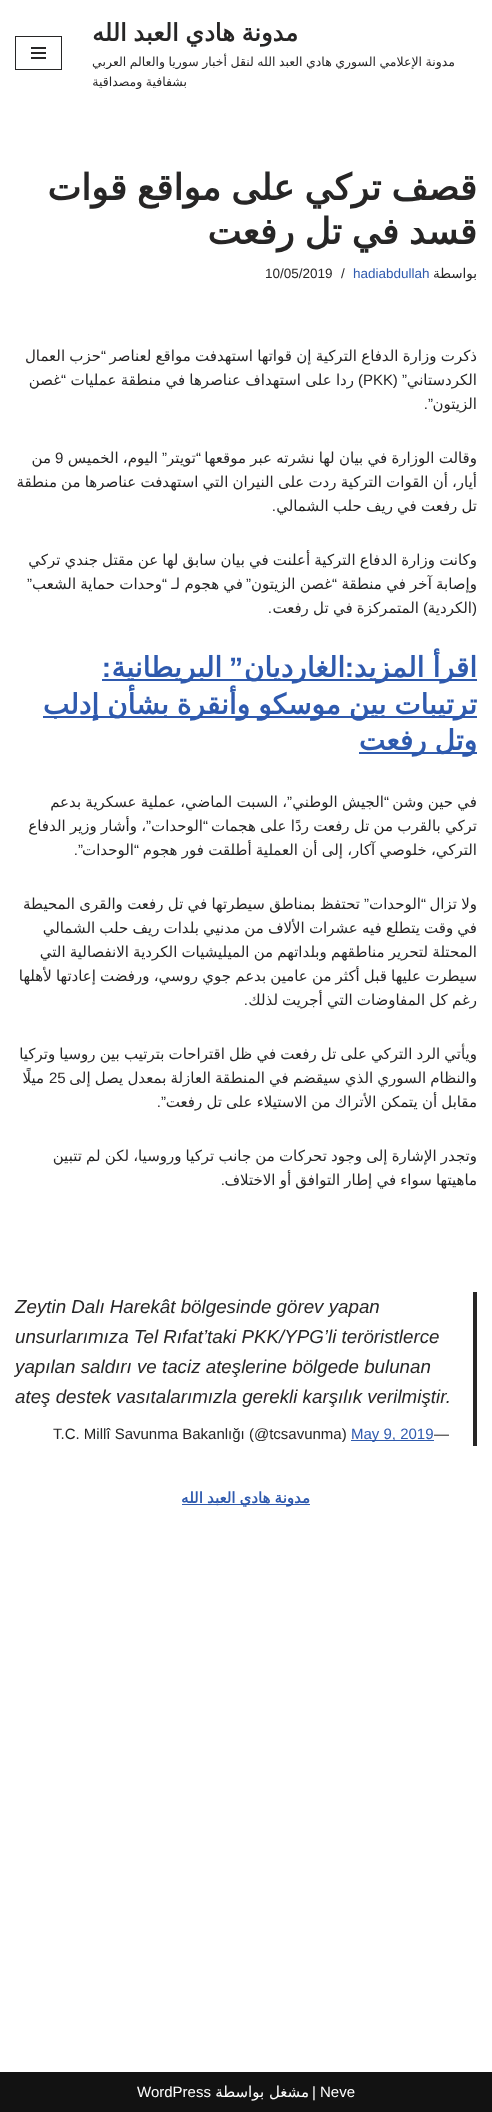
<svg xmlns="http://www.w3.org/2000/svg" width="492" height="2112">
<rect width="100%" height="100%" fill="#fff"/>
<text x="298" y="41" word-spacing="-1" style="font-family:DejaVu Sans;font-size:24px;font-weight:bold;direction:rtl;fill:#272626">مدونة هادي العبد الله</text>
<text x="455" y="66" word-spacing="-0.5" style="font-family:DejaVu Sans;font-size:12.5px;direction:rtl;fill:#272626">مدونة الإعلامي السوري هادي العبد الله لنقل أخبار سوريا والعالم العربي</text>
<text x="187" y="86" word-spacing="-0.5" style="font-family:DejaVu Sans;font-size:12.5px;direction:rtl;fill:#272626">بشفافية ومصداقية</text>
<rect x="15.5" y="36.5" width="46" height="33" fill="none" stroke="#272626"/>
<rect x="31" y="47" width="15" height="2" fill="#272626"/>
<rect x="31" y="52" width="15" height="2" fill="#272626"/>
<rect x="31" y="57" width="15" height="2" fill="#272626"/>
<text x="477" y="200" word-spacing="-1.5" style="font-family:DejaVu Sans;font-size:36px;font-weight:bold;direction:rtl;fill:#272626">قصف تركي على مواقع قوات</text>
<text x="477" y="244" word-spacing="-1.5" style="font-family:DejaVu Sans;font-size:36px;font-weight:bold;direction:rtl;fill:#272626">قسد في تل رفعت</text>
<text x="477" y="278" style="font-family:DejaVu Sans;font-size:13.5px;direction:rtl;fill:#272626">بواسطة</text>
<text x="353" y="278" style="font-family:Liberation Sans;font-size:13.5px;fill:#2f5aae">hadiabdullah</text>
<text x="341" y="278" style="font-family:Liberation Sans;font-size:13.5px;fill:#272626">/</text>
<text x="265" y="278" style="font-family:Liberation Sans;font-size:13.5px;fill:#272626">10/05/2019</text>
<text x="477" y="361" word-spacing="-0.5" style="font-family:DejaVu Sans;font-size:15px;direction:rtl;fill:#272626">ذكرت وزارة الدفاع التركية إن قواتها استهدفت مواقع لعناصر</text>
<text x="106" y="361" style="font-family:Liberation Sans;font-size:15px;direction:rtl;fill:#272626">“</text>
<text x="101" y="361" word-spacing="-0.5" style="font-family:DejaVu Sans;font-size:15px;direction:rtl;fill:#272626">حزب العمال</text>
<text x="477" y="385" style="font-family:DejaVu Sans;font-size:15px;direction:rtl;fill:#272626">الكردستاني</text>
<text x="407" y="385" style="font-family:Liberation Sans;font-size:15px;direction:rtl;fill:#272626">” (</text>
<text x="363" y="385" style="font-family:Liberation Sans;font-size:15px;fill:#272626">PKK</text>
<text x="363" y="385" style="font-family:Liberation Sans;font-size:15px;direction:rtl;fill:#272626">)</text>
<text x="354" y="385" word-spacing="-0.5" style="font-family:DejaVu Sans;font-size:15px;direction:rtl;fill:#272626">ردا على استهداف عناصرها في منطقة عمليات</text>
<text x="66" y="385" style="font-family:Liberation Sans;font-size:15px;direction:rtl;fill:#272626">“</text>
<text x="61" y="385" style="font-family:DejaVu Sans;font-size:15px;direction:rtl;fill:#272626">غصن</text>
<text x="477" y="409" style="font-family:DejaVu Sans;font-size:15px;direction:rtl;fill:#272626">الزيتون</text>
<text x="433" y="409" style="font-family:Liberation Sans;font-size:15px;direction:rtl;fill:#272626">”.</text>
<text x="477" y="463" word-spacing="-0.5" style="font-family:DejaVu Sans;font-size:15px;direction:rtl;fill:#272626">وقالت الوزارة في بيان لها نشرته عبر موقعها</text>
<text x="201" y="463" style="font-family:Liberation Sans;font-size:15px;direction:rtl;fill:#272626">“</text>
<text x="167" y="463" style="font-family:Liberation Sans;font-size:15px;direction:rtl;fill:#272626">”</text>
<text x="158" y="463" word-spacing="-0.5" style="font-family:DejaVu Sans;font-size:15px;direction:rtl;fill:#272626">اليوم، الخميس</text>
<text x="55" y="463" style="font-family:Liberation Sans;font-size:15px;fill:#272626">9</text>
<text x="196" y="463" style="font-family:DejaVu Sans;font-size:15px;direction:rtl;fill:#272626">تويتر</text>
<text x="51" y="463" style="font-family:DejaVu Sans;font-size:15px;direction:rtl;fill:#272626">من</text>
<text x="477" y="487" word-spacing="-0.6" style="font-family:DejaVu Sans;font-size:15px;direction:rtl;fill:#272626">أيار، أن القوات التركية ردت على النيران التي استهدفت عناصرها من منطقة</text>
<text x="477" y="511" word-spacing="-0.6" style="font-family:DejaVu Sans;font-size:15px;direction:rtl;fill:#272626">تل رفعت في ريف حلب الشمالي</text>
<text x="276" y="511" style="font-family:Liberation Sans;font-size:15px;direction:rtl;fill:#272626">.</text>
<text x="477" y="565" word-spacing="-0.6" style="font-family:DejaVu Sans;font-size:15px;direction:rtl;fill:#272626">وكانت وزارة الدفاع التركية أعلنت في بيان سابق لها عن مقتل جندي تركي</text>
<text x="477" y="589" word-spacing="-0.5" style="font-family:DejaVu Sans;font-size:15px;direction:rtl;fill:#272626">وإصابة آخر في منطقة</text>
<text x="337" y="589" style="font-family:Liberation Sans;font-size:15px;direction:rtl;fill:#272626">“</text>
<text x="332" y="589" word-spacing="-0.5" style="font-family:DejaVu Sans;font-size:15px;direction:rtl;fill:#272626">غصن الزيتون</text>
<text x="251" y="589" style="font-family:Liberation Sans;font-size:15px;direction:rtl;fill:#272626">”</text>
<text x="243" y="589" word-spacing="-0.5" style="font-family:DejaVu Sans;font-size:15px;direction:rtl;fill:#272626">في هجوم لـ</text>
<text x="167" y="589" style="font-family:Liberation Sans;font-size:15px;direction:rtl;fill:#272626">“</text>
<text x="162" y="589" word-spacing="-0.5" style="font-family:DejaVu Sans;font-size:15px;direction:rtl;fill:#272626">وحدات حماية الشعب</text>
<text x="32" y="589" style="font-family:Liberation Sans;font-size:15px;direction:rtl;fill:#272626">”</text>
<text x="477" y="613" style="font-family:Liberation Sans;font-size:15px;direction:rtl;fill:#272626">(</text>
<text x="472" y="613" style="font-family:DejaVu Sans;font-size:15px;direction:rtl;fill:#272626">الكردية</text>
<text x="428" y="613" style="font-family:Liberation Sans;font-size:15px;direction:rtl;fill:#272626">)</text>
<text x="419" y="613" word-spacing="-0.5" style="font-family:DejaVu Sans;font-size:15px;direction:rtl;fill:#272626">المتمركزة في تل رفعت</text>
<text x="272" y="613" style="font-family:Liberation Sans;font-size:15px;direction:rtl;fill:#272626">.</text>
<rect x="102" y="679" width="375" height="2" fill="#2f5aae"/>
<text x="477" y="677" word-spacing="-0.5" style="font-family:DejaVu Sans;font-size:28px;font-weight:bold;direction:rtl;fill:#2f5aae">اقرأ المزيد</text>
<text x="354" y="677" style="font-family:Liberation Sans;font-size:28px;font-weight:bold;direction:rtl;fill:#2f5aae">:</text>
<text x="345" y="677" style="font-family:DejaVu Sans;font-size:28px;font-weight:bold;direction:rtl;fill:#2f5aae">الغارديان</text>
<text x="243" y="677" style="font-family:Liberation Sans;font-size:28px;font-weight:bold;direction:rtl;fill:#2f5aae">”</text>
<text x="222" y="677" style="font-family:DejaVu Sans;font-size:28px;font-weight:bold;direction:rtl;fill:#2f5aae">البريطانية</text>
<text x="111" y="677" style="font-family:Liberation Sans;font-size:28px;font-weight:bold;direction:rtl;fill:#2f5aae">:</text>
<rect x="43" y="716" width="434" height="2" fill="#2f5aae"/>
<text x="477" y="714" word-spacing="-1" style="font-family:DejaVu Sans;font-size:28px;font-weight:bold;direction:rtl;fill:#2f5aae">ترتيبات بين موسكو وأنقرة بشأن إدلب</text>
<rect x="359" y="752" width="118" height="2" fill="#2f5aae"/>
<text x="477" y="750" word-spacing="-1" style="font-family:DejaVu Sans;font-size:28px;font-weight:bold;direction:rtl;fill:#2f5aae">وتل رفعت</text>
<text x="477" y="807" word-spacing="-0.5" style="font-family:DejaVu Sans;font-size:15px;direction:rtl;fill:#272626">في حين وشن</text>
<text x="389" y="807" style="font-family:Liberation Sans;font-size:15px;direction:rtl;fill:#272626">“</text>
<text x="384" y="807" word-spacing="-0.5" style="font-family:DejaVu Sans;font-size:15px;direction:rtl;fill:#272626">الجيش الوطني</text>
<text x="287" y="807" word-spacing="-0.5" style="font-family:DejaVu Sans;font-size:15px;direction:rtl;fill:#272626">، السبت الماضي، عملية عسكرية بدعم</text>
<text x="292" y="807" style="font-family:Liberation Sans;font-size:15px;direction:rtl;fill:#272626">”</text>
<text x="477" y="831" word-spacing="-0.5" style="font-family:DejaVu Sans;font-size:15px;direction:rtl;fill:#272626">تركي بالقرب من تل رفعت ردًا على هجمات</text>
<text x="208" y="831" style="font-family:Liberation Sans;font-size:15px;direction:rtl;fill:#272626">“</text>
<text x="203" y="831" style="font-family:DejaVu Sans;font-size:15px;direction:rtl;fill:#272626">الوحدات</text>
<text x="146" y="831" word-spacing="-0.5" style="font-family:DejaVu Sans;font-size:15px;direction:rtl;fill:#272626">، وأشار وزير الدفاع</text>
<text x="151" y="831" style="font-family:Liberation Sans;font-size:15px;direction:rtl;fill:#272626">”</text>
<text x="477" y="855" word-spacing="-0.5" style="font-family:DejaVu Sans;font-size:15px;direction:rtl;fill:#272626">التركي، خلوصي آكار، إلى أن العملية أطلقت فور هجوم</text>
<text x="139" y="855" style="font-family:Liberation Sans;font-size:15px;direction:rtl;fill:#272626">“</text>
<text x="134" y="855" style="font-family:DejaVu Sans;font-size:15px;direction:rtl;fill:#272626">الوحدات</text>
<text x="83" y="855" style="font-family:Liberation Sans;font-size:15px;direction:rtl;fill:#272626">”.</text>
<text x="477" y="909" word-spacing="-0.5" style="font-family:DejaVu Sans;font-size:15px;direction:rtl;fill:#272626">ولا تزال</text>
<text x="426" y="909" style="font-family:Liberation Sans;font-size:15px;direction:rtl;fill:#272626">“</text>
<text x="421" y="909" style="font-family:DejaVu Sans;font-size:15px;direction:rtl;fill:#272626">الوحدات</text>
<text x="369" y="909" style="font-family:Liberation Sans;font-size:15px;direction:rtl;fill:#272626">”</text>
<text x="360" y="909" word-spacing="-0.5" style="font-family:DejaVu Sans;font-size:15px;direction:rtl;fill:#272626">تحتفظ بمناطق سيطرتها في تل رفعت والقرى المحيطة</text>
<text x="477" y="933" word-spacing="-0.6" style="font-family:DejaVu Sans;font-size:15px;direction:rtl;fill:#272626">في وقت يتطلع فيه عشرات الألاف من مدنيي بلدات ريف حلب الشمالي</text>
<text x="477" y="957" word-spacing="-0.6" style="font-family:DejaVu Sans;font-size:15px;direction:rtl;fill:#272626">المحتلة لتحرير مناطقهم وبلداتهم من الميليشيات الكردية الانفصالية التي</text>
<text x="477" y="981" word-spacing="-0.6" style="font-family:DejaVu Sans;font-size:15px;direction:rtl;fill:#272626">سيطرت عليها قبل أكثر من عامين بدعم جوي روسي، ورفضت إعادتها لأهلها</text>
<text x="477" y="1005" word-spacing="-0.6" style="font-family:DejaVu Sans;font-size:15px;direction:rtl;fill:#272626">رغم كل المفاوضات التي أجريت لذلك</text>
<text x="248" y="1005" style="font-family:Liberation Sans;font-size:15px;direction:rtl;fill:#272626">.</text>
<text x="477" y="1059" word-spacing="-0.6" style="font-family:DejaVu Sans;font-size:15px;direction:rtl;fill:#272626">ويأتي الرد التركي على تل رفعت في ظل اقتراحات بترتيب بين روسيا وتركيا</text>
<text x="477" y="1083" word-spacing="-0.6" style="font-family:DejaVu Sans;font-size:15px;direction:rtl;fill:#272626">والنظام السوري الذي سيقضم في المنطقة العازلة بمعدل يصل إلى</text>
<text x="49" y="1083" style="font-family:Liberation Sans;font-size:15px;fill:#272626">25</text>
<text x="44" y="1083" style="font-family:DejaVu Sans;font-size:15px;direction:rtl;fill:#272626">ميلًا</text>
<text x="477" y="1107" word-spacing="-0.6" style="font-family:DejaVu Sans;font-size:15px;direction:rtl;fill:#272626">مقابل أن يتمكن الأتراك من الاستيلاء على تل رفعت</text>
<text x="166" y="1107" style="font-family:Liberation Sans;font-size:15px;direction:rtl;fill:#272626">”.</text>
<text x="477" y="1161" word-spacing="-0.6" style="font-family:DejaVu Sans;font-size:15px;direction:rtl;fill:#272626">وتجدر الإشارة إلى وجود تحركات من جانب تركيا وروسيا، لكن لم تتبين</text>
<text x="477" y="1185" word-spacing="-0.6" style="font-family:DejaVu Sans;font-size:15px;direction:rtl;fill:#272626">ماهيتها سواء في إطار التوافق أو الاختلاف</text>
<text x="225" y="1185" style="font-family:Liberation Sans;font-size:15px;direction:rtl;fill:#272626">.</text>
<rect x="473" y="1292" width="4" height="154" fill="#272626"/>
<text x="15" y="1313" style="font-family:Liberation Sans;font-size:18.75px;font-style:italic;fill:#272626">Zeytin Dalı Harekât bölgesinde görev yapan</text>
<text x="15" y="1343" style="font-family:Liberation Sans;font-size:18.75px;font-style:italic;fill:#272626">unsurlarımıza Tel Rıfat’taki PKK/YPG’li teröristlerce</text>
<text x="15" y="1373" style="font-family:Liberation Sans;font-size:18.75px;font-style:italic;fill:#272626">yapılan saldırı ve taciz ateşlerine bölgede bulunan</text>
<text x="15" y="1403" style="font-family:Liberation Sans;font-size:18.75px;font-style:italic;fill:#272626">ateş destek vasıtalarımızla gerekli karşılık verilmiştir.</text>
<text x="434" y="1439" style="font-family:Liberation Sans;font-size:15px;fill:#272626">—</text>
<rect x="351" y="1440" width="83" height="1" fill="#2f5aae"/>
<text x="351" y="1439" style="font-family:Liberation Sans;font-size:15px;fill:#2f5aae">May 9, 2019</text>
<text x="53" y="1439" style="font-family:Liberation Sans;font-size:15px;fill:#272626">T.C. Millî Savunma Bakanlığı (@tcsavunma)</text>
<rect x="182" y="1504" width="128" height="1" fill="#2f5aae"/>
<text x="310" y="1503" word-spacing="-0.6" style="font-family:DejaVu Sans;font-size:15px;font-weight:bold;direction:rtl;fill:#2f5aae">مدونة هادي العبد الله</text>
<rect y="2072" width="492" height="40" fill="#121212"/>
<text x="320" y="2097" style="font-family:Liberation Sans;font-size:15px;fill:#fff">Neve</text>
<text x="316" y="2097" style="font-family:Liberation Sans;font-size:15px;direction:rtl;fill:#fff">|</text>
<text x="309" y="2097" style="font-family:DejaVu Sans;font-size:15px;direction:rtl;fill:#fff">مشغل بواسطة</text>
<text x="137" y="2097" style="font-family:Liberation Sans;font-size:15px;fill:#fff">WordPress</text>
</svg>
